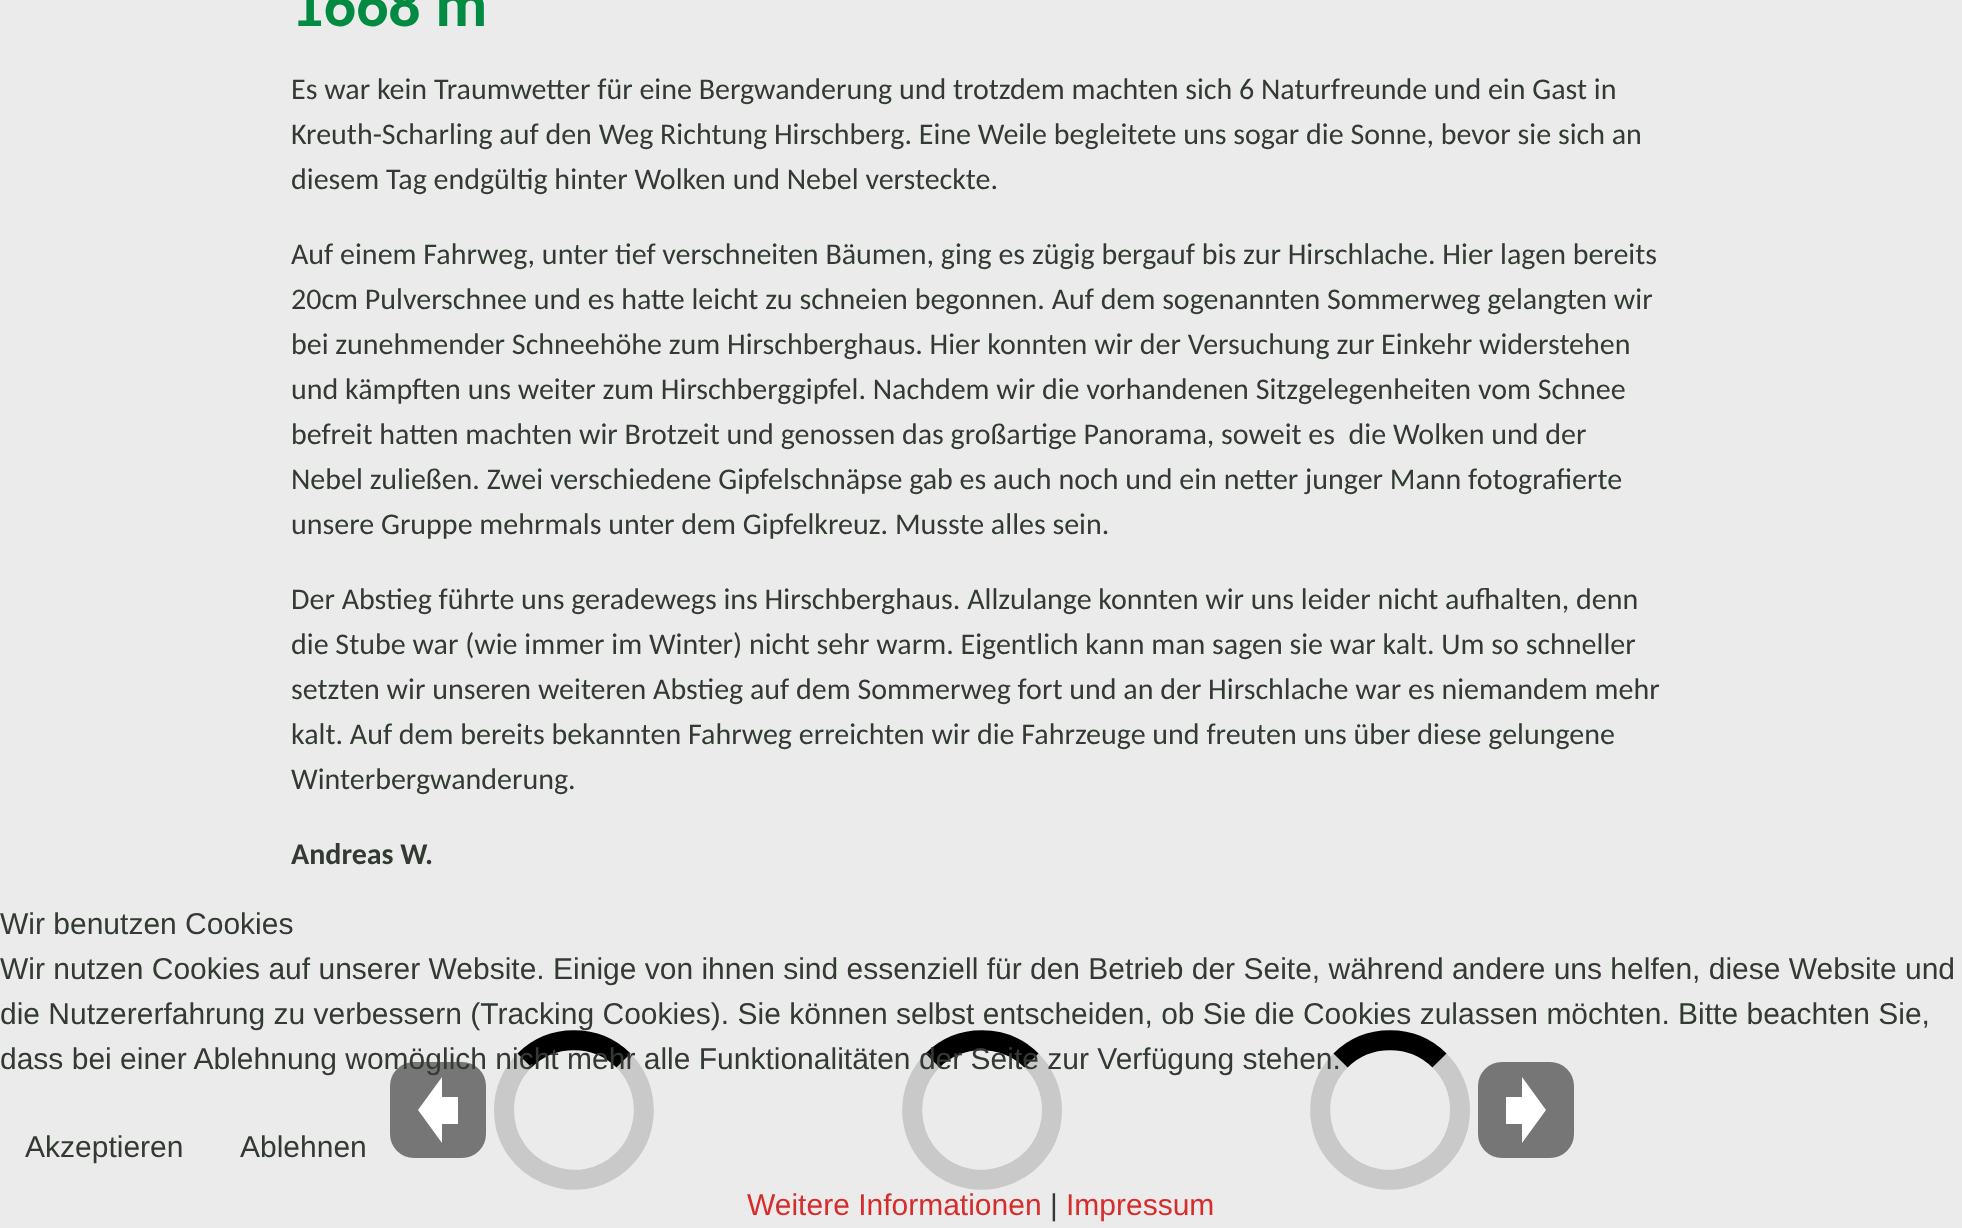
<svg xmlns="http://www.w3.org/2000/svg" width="1962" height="1228">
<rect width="100%" height="100%" fill="#ebebeb"/>
<text x="291" y="26" style="font-family:Carlito;font-size:64px;font-weight:bold;fill:#008a42">1668 m</text>
<text x="291" y="99" style="font-family:Carlito;font-size:30px;fill:#323a32">Es war kein Traumwetter für eine Bergwanderung und trotzdem machten sich 6 Naturfreunde und ein Gast in</text>
<text x="291" y="144" style="font-family:Carlito;font-size:30px;fill:#323a32">Kreuth-Scharling auf den Weg Richtung Hirschberg. Eine Weile begleitete uns sogar die Sonne, bevor sie sich an</text>
<text x="291" y="189" style="font-family:Carlito;font-size:30px;fill:#323a32">diesem Tag endgültig hinter Wolken und Nebel versteckte.</text>
<text x="291" y="264" style="font-family:Carlito;font-size:30px;fill:#323a32">Auf einem Fahrweg, unter tief verschneiten Bäumen, ging es zügig bergauf bis zur Hirschlache. Hier lagen bereits</text>
<text x="291" y="309" style="font-family:Carlito;font-size:30px;fill:#323a32">20cm Pulverschnee und es hatte leicht zu schneien begonnen. Auf dem sogenannten Sommerweg gelangten wir</text>
<text x="291" y="354" style="font-family:Carlito;font-size:30px;fill:#323a32">bei zunehmender Schneehöhe zum Hirschberghaus. Hier konnten wir der Versuchung zur Einkehr widerstehen</text>
<text x="291" y="399" style="font-family:Carlito;font-size:30px;fill:#323a32">und kämpften uns weiter zum Hirschberggipfel. Nachdem wir die vorhandenen Sitzgelegenheiten vom Schnee</text>
<text x="291" y="444" style="font-family:Carlito;font-size:30px;fill:#323a32" xml:space="preserve">befreit hatten machten wir Brotzeit und genossen das großartige Panorama, soweit es  die Wolken und der</text>
<text x="291" y="489" style="font-family:Carlito;font-size:30px;fill:#323a32">Nebel zuließen. Zwei verschiedene Gipfelschnäpse gab es auch noch und ein netter junger Mann fotografierte</text>
<text x="291" y="534" style="font-family:Carlito;font-size:30px;fill:#323a32">unsere Gruppe mehrmals unter dem Gipfelkreuz. Musste alles sein.</text>
<text x="291" y="609" style="font-family:Carlito;font-size:30px;fill:#323a32">Der Abstieg führte uns geradewegs ins Hirschberghaus. Allzulange konnten wir uns leider nicht aufhalten, denn</text>
<text x="291" y="654" style="font-family:Carlito;font-size:30px;fill:#323a32">die Stube war (wie immer im Winter) nicht sehr warm. Eigentlich kann man sagen sie war kalt. Um so schneller</text>
<text x="291" y="699" style="font-family:Carlito;font-size:30px;fill:#323a32">setzten wir unseren weiteren Abstieg auf dem Sommerweg fort und an der Hirschlache war es niemandem mehr</text>
<text x="291" y="744" style="font-family:Carlito;font-size:30px;fill:#323a32">kalt. Auf dem bereits bekannten Fahrweg erreichten wir die Fahrzeuge und freuten uns über diese gelungene</text>
<text x="291" y="789" style="font-family:Carlito;font-size:30px;fill:#323a32">Winterbergwanderung.</text>
<text x="291" y="864" style="font-family:Carlito;font-size:30px;font-weight:bold;fill:#323a32">Andreas W.</text>
<rect x="390" y="1062" width="96" height="96" rx="24" fill="#767676"/>
<path d="M442 1097h16v27h-16zm-24 13l24 33m0 0l-24-33l24-33" fill="#fff"/>
<path d="M524.5 1060.5c27-27 72-27 99 0" fill="none" stroke="#000" stroke-width="20"/>
<path d="M623.5 1060.5c16.5 16.5 23.5 40.5 19 63c-2.5 13.5-9.5 26.5-19 36c-44 43.5-119.5 12.5-119.5-49.5c0-18.5 7.5-36.5 20.5-49.5" fill="none" stroke="#40404033" stroke-width="20"/>
<path d="M932.5 1060.5c27-27 72-27 99 0" fill="none" stroke="#000" stroke-width="20"/>
<path d="M1031.5 1060.5c13 13 20.5 31 20.5 49.5c0 62-75.5 93-119.5 49.5c-9.5-9.5-16.5-22.5-19-36c-4.5-22.5 2.5-46.5 19-63" fill="none" stroke="#40404033" stroke-width="20"/>
<path d="M1340.5 1060.5c27-27 72-27 99 0" fill="none" stroke="#000" stroke-width="20"/>
<path d="M1439.5 1060.5c13 13 20.5 31 20.5 49.5c0 62-75.5 93-119.5 49.5c-9.5-9.5-16.5-22.5-19-36c-4.5-22.5 2.5-46.5 19-63" fill="none" stroke="#40404033" stroke-width="20"/>
<rect x="1478" y="1062" width="96" height="96" rx="24" fill="#767676"/>
<path d="M1522 1097h-16v27h16zm24 13l-24 33m0 0l24-33l-24-33" fill="#fff"/>
<text x="0" y="934" style="font-family:Liberation Sans;font-size:30px;fill:#323a32">Wir benutzen Cookies</text>
<text x="0" y="979" style="font-family:Liberation Sans;font-size:30px;fill:#323a32">Wir nutzen Cookies auf unserer Website. Einige von ihnen sind essenziell für den Betrieb der Seite, während andere uns helfen, diese Website und</text>
<text x="0" y="1024" style="font-family:Liberation Sans;font-size:30px;fill:#323a32">die Nutzererfahrung zu verbessern (Tracking Cookies). Sie können selbst entscheiden, ob Sie die Cookies zulassen möchten. Bitte beachten Sie,</text>
<text x="0" y="1069" style="font-family:Liberation Sans;font-size:30px;fill:#323a32">dass bei einer Ablehnung womöglich nicht mehr alle Funktionalitäten der Seite zur Verfügung stehen.</text>
<text x="25" y="1157" style="font-family:Liberation Sans;font-size:30px;fill:#323a32">Akzeptieren</text>
<text x="240" y="1157" style="font-family:Liberation Sans;font-size:30px;fill:#323a32">Ablehnen</text>
<text x="747" y="1215" style="font-family:Liberation Sans;font-size:30px;fill:#d72c2c">Weitere Informationen</text>
<text x="1050" y="1215" style="font-family:Liberation Sans;font-size:30px;fill:#323a32">|</text>
<text x="1066" y="1215" style="font-family:Liberation Sans;font-size:30px;fill:#d72c2c">Impressum</text>
</svg>
